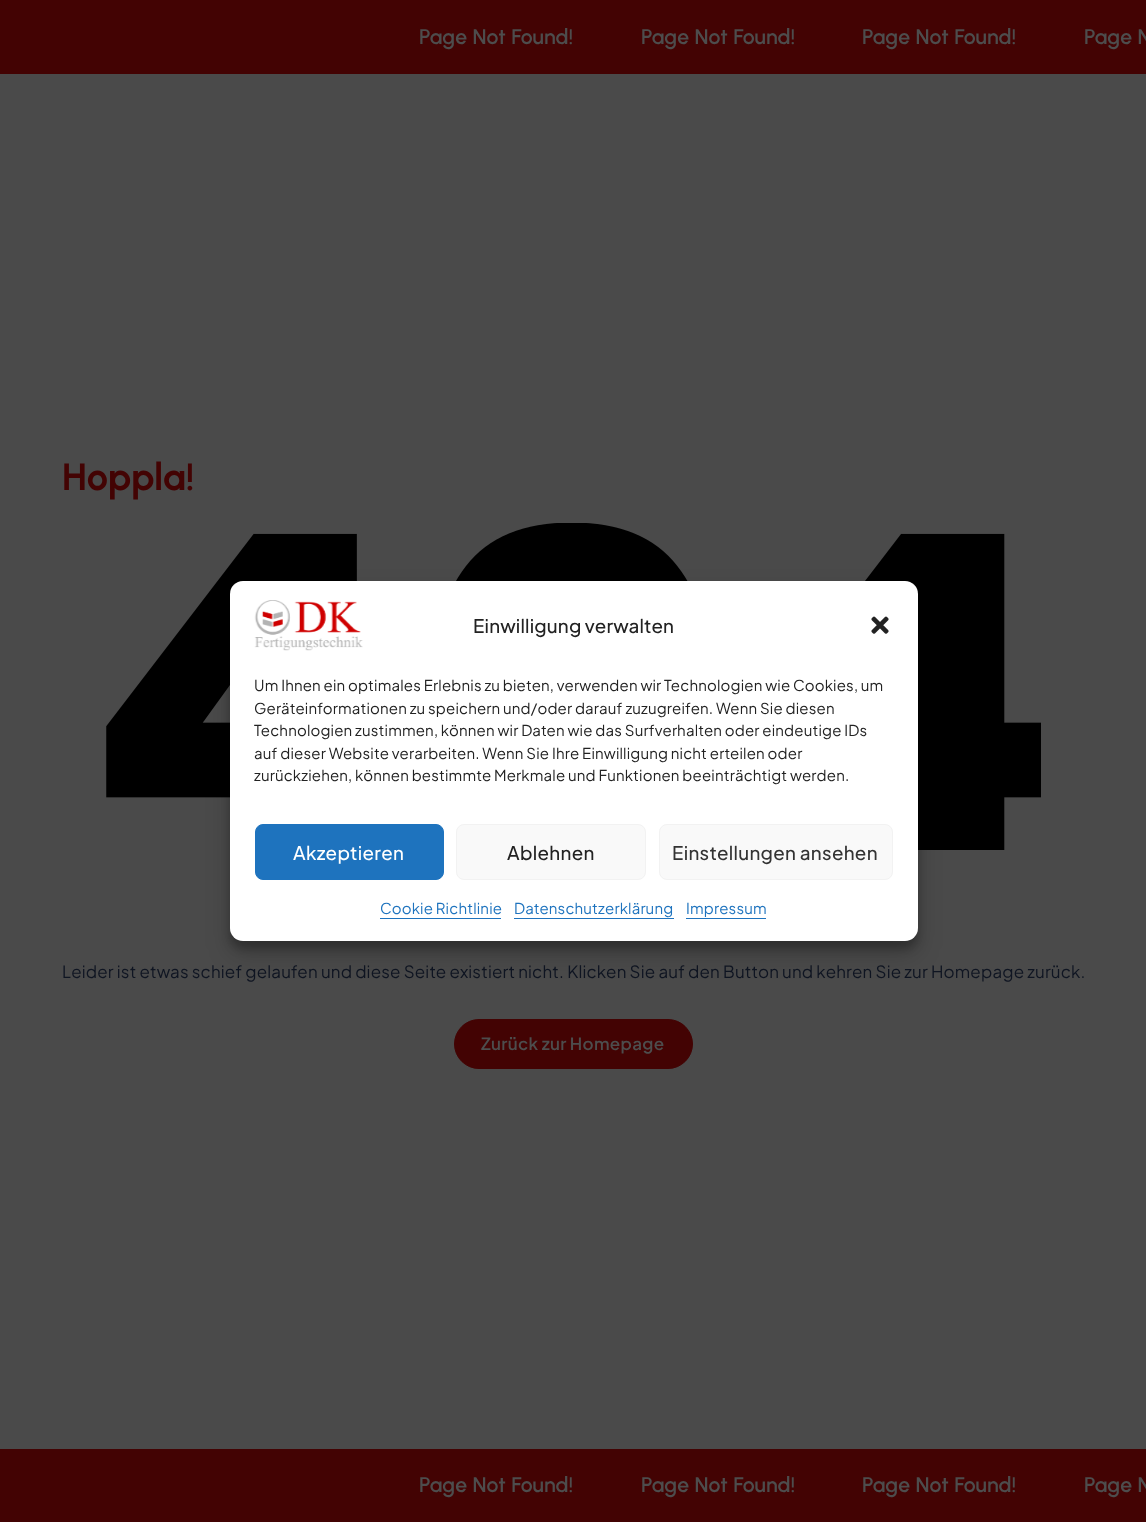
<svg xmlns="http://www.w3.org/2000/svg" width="1146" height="1522">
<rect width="100%" height="100%" fill="#4a4a4a"/>
<rect width="1146" height="74" fill="#430303"/>
<text x="419" y="44" style="font-family:Urbanist;font-size:21.25px;font-weight:600;letter-spacing:0.17px;fill:#4d4d4d">Page Not Found!</text>
<text x="641" y="44" style="font-family:Urbanist;font-size:21.25px;font-weight:600;letter-spacing:0.17px;fill:#4d4d4d">Page Not Found!</text>
<text x="862" y="44" style="font-family:Urbanist;font-size:21.25px;font-weight:600;letter-spacing:0.17px;fill:#4d4d4d">Page Not Found!</text>
<text x="1084" y="44" style="font-family:Urbanist;font-size:21.25px;font-weight:600;letter-spacing:0.17px;fill:#4d4d4d">Page N</text>
<rect y="1449" width="1146" height="73" fill="#430303"/>
<text x="419" y="1492" style="font-family:Urbanist;font-size:21.25px;font-weight:600;letter-spacing:0.17px;fill:#4d4d4d">Page Not Found!</text>
<text x="641" y="1492" style="font-family:Urbanist;font-size:21.25px;font-weight:600;letter-spacing:0.17px;fill:#4d4d4d">Page Not Found!</text>
<text x="862" y="1492" style="font-family:Urbanist;font-size:21.25px;font-weight:600;letter-spacing:0.17px;fill:#4d4d4d">Page Not Found!</text>
<text x="1084" y="1492" style="font-family:Urbanist;font-size:21.25px;font-weight:600;letter-spacing:0.17px;fill:#4d4d4d">Page N</text>
<text x="62" y="490" style="font-family:Urbanist;font-size:38px;font-weight:bold;letter-spacing:0.17px;fill:#430303">Hoppla!</text>
<image x="106" y="523" width="935" height="327" href="media/1.png"/>
<text x="62" y="978" style="font-family:Plus Jakarta Sans;font-size:16.95px;letter-spacing:0.17px;fill:#0f1522">Leider ist etwas schief gelaufen und diese Seite existiert nicht. Klicken Sie auf den Button und kehren Sie zur Homepage zurück.</text>
<rect x="454.5" y="1019.5" width="238" height="49" rx="24.5" fill="#430303" stroke="#430303"/>
<text x="481" y="1050" style="font-family:Plus Jakarta Sans;font-size:16.95px;font-weight:600;letter-spacing:0.3px;fill:#4d4d4d">Zurück zur Homepage</text>
<rect x="230" y="589" width="688" height="360" rx="13" fill="#0000003b" filter="blur(4px)"/>
<rect x="230" y="594" width="688" height="360" rx="13" fill="#00000030" filter="blur(12.5px)"/>
<rect x="230" y="581" width="688" height="360" rx="13" fill="#fff"/>
<image x="254" y="600" width="109" height="51" href="media/2.png"/>
<text x="473" y="633" style="font-family:Plus Jakarta Sans;font-size:18.75px;font-weight:500;letter-spacing:0.17px;fill:#222">Einwilligung verwalten</text>
<image x="871" y="616" width="18" height="18" href="media/3.png"/>
<text x="254" y="691" style="font-family:Plus Jakarta Sans;font-size:15px;letter-spacing:0.17px;fill:#222">Um Ihnen ein optimales Erlebnis zu bieten, verwenden wir Technologien wie Cookies, um</text>
<text x="254" y="714" style="font-family:Plus Jakarta Sans;font-size:15px;letter-spacing:0.17px;fill:#222">Geräteinformationen zu speichern und/oder darauf zuzugreifen. Wenn Sie diesen</text>
<text x="254" y="736" style="font-family:Plus Jakarta Sans;font-size:15px;letter-spacing:0.17px;fill:#222">Technologien zustimmen, können wir Daten wie das Surfverhalten oder eindeutige IDs</text>
<text x="254" y="759" style="font-family:Plus Jakarta Sans;font-size:15px;letter-spacing:0.17px;fill:#222">auf dieser Website verarbeiten. Wenn Sie Ihre Einwilligung nicht erteilen oder</text>
<text x="254" y="781" style="font-family:Plus Jakarta Sans;font-size:15px;letter-spacing:0.17px;fill:#222">zurückziehen, können bestimmte Merkmale und Funktionen beeinträchtigt werden.</text>
<rect x="255.5" y="824.5" width="188" height="55" rx="7.5" fill="#1e73be" stroke="#1e73be"/>
<text x="293" y="860" style="font-family:Plus Jakarta Sans;font-size:18.75px;font-weight:500;letter-spacing:0.3px;fill:#fff">Akzeptieren</text>
<rect x="456.5" y="824.5" width="189" height="55" rx="7.5" fill="#f9f9f9" stroke="#f2f2f2"/>
<text x="507" y="860" style="font-family:Plus Jakarta Sans;font-size:18.75px;font-weight:500;letter-spacing:0.3px;fill:#222">Ablehnen</text>
<rect x="659.5" y="824.5" width="233" height="55" rx="7.5" fill="#f9f9f9" stroke="#f2f2f2"/>
<text x="672" y="860" style="font-family:Plus Jakarta Sans;font-size:18.75px;font-weight:500;letter-spacing:0.3px;fill:#333">Einstellungen ansehen</text>
<text x="380" y="914" style="font-family:Plus Jakarta Sans;font-size:15px;letter-spacing:0.17px;fill:#1e73be">Cookie Richtlinie</text>
<rect x="380" y="918" width="121" height="1" fill="#1e73be"/>
<text x="514" y="914" style="font-family:Plus Jakarta Sans;font-size:15px;letter-spacing:0.17px;fill:#1e73be">Datenschutzerklärung</text>
<rect x="514" y="918" width="160" height="1" fill="#1e73be"/>
<text x="686" y="914" style="font-family:Plus Jakarta Sans;font-size:15px;letter-spacing:0.17px;fill:#1e73be">Impressum</text>
<rect x="686" y="918" width="80" height="1" fill="#1e73be"/>
</svg>
